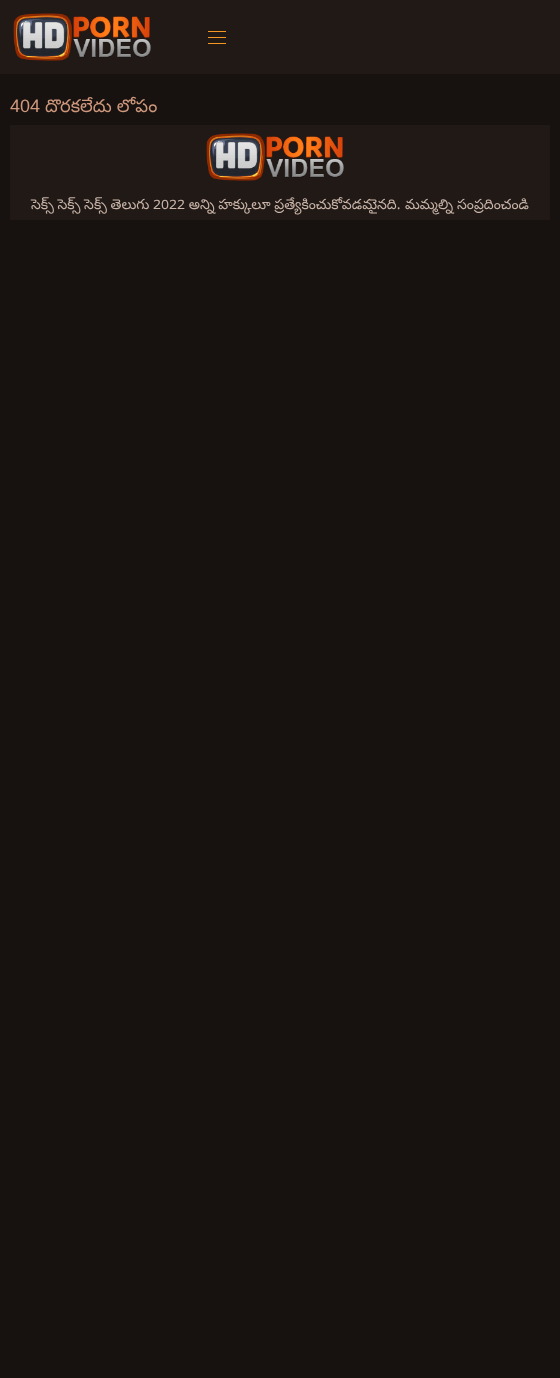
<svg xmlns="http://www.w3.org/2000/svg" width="560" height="1378">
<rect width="100%" height="100%" fill="#17120f"/>
<rect width="560" height="74" fill="#211916"/>
<image x="13" y="13" width="138" height="48" href="media/1.png"/>
<rect x="208" y="31" width="18" height="1" fill="#f59722"/>
<rect x="208" y="43" width="18" height="1" fill="#f59722"/>
<rect x="208" y="37" width="18" height="1" fill="#f59722"/>
<text x="10" y="112" style="font-family:Liberation Sans;font-size:18px;fill:#cf987d">404</text>
<text x="45" y="112" style="font-family:Noto Sans Telugu;font-size:18px;fill:#cf987d">దొరకలేదు లోపం</text>
<rect x="10" y="125" width="540" height="95" fill="#211916"/>
<image x="206" y="133" width="138" height="48" href="media/2.png"/>
<text x="31" y="209" word-spacing="-0.25" style="font-family:Noto Sans Telugu;font-size:14px;fill:#c8b4a8">సెక్స్ సెక్స్ సెక్స్ తెలుగు 2022 అన్ని హక్కులూ ప్రత్యేకించుకోవడమైనది.</text>
<text x="405" y="209" style="font-family:Noto Sans Telugu;font-size:14px;fill:#c8b4a8">మమ్మల్ని సంప్రదించండి</text>
</svg>
